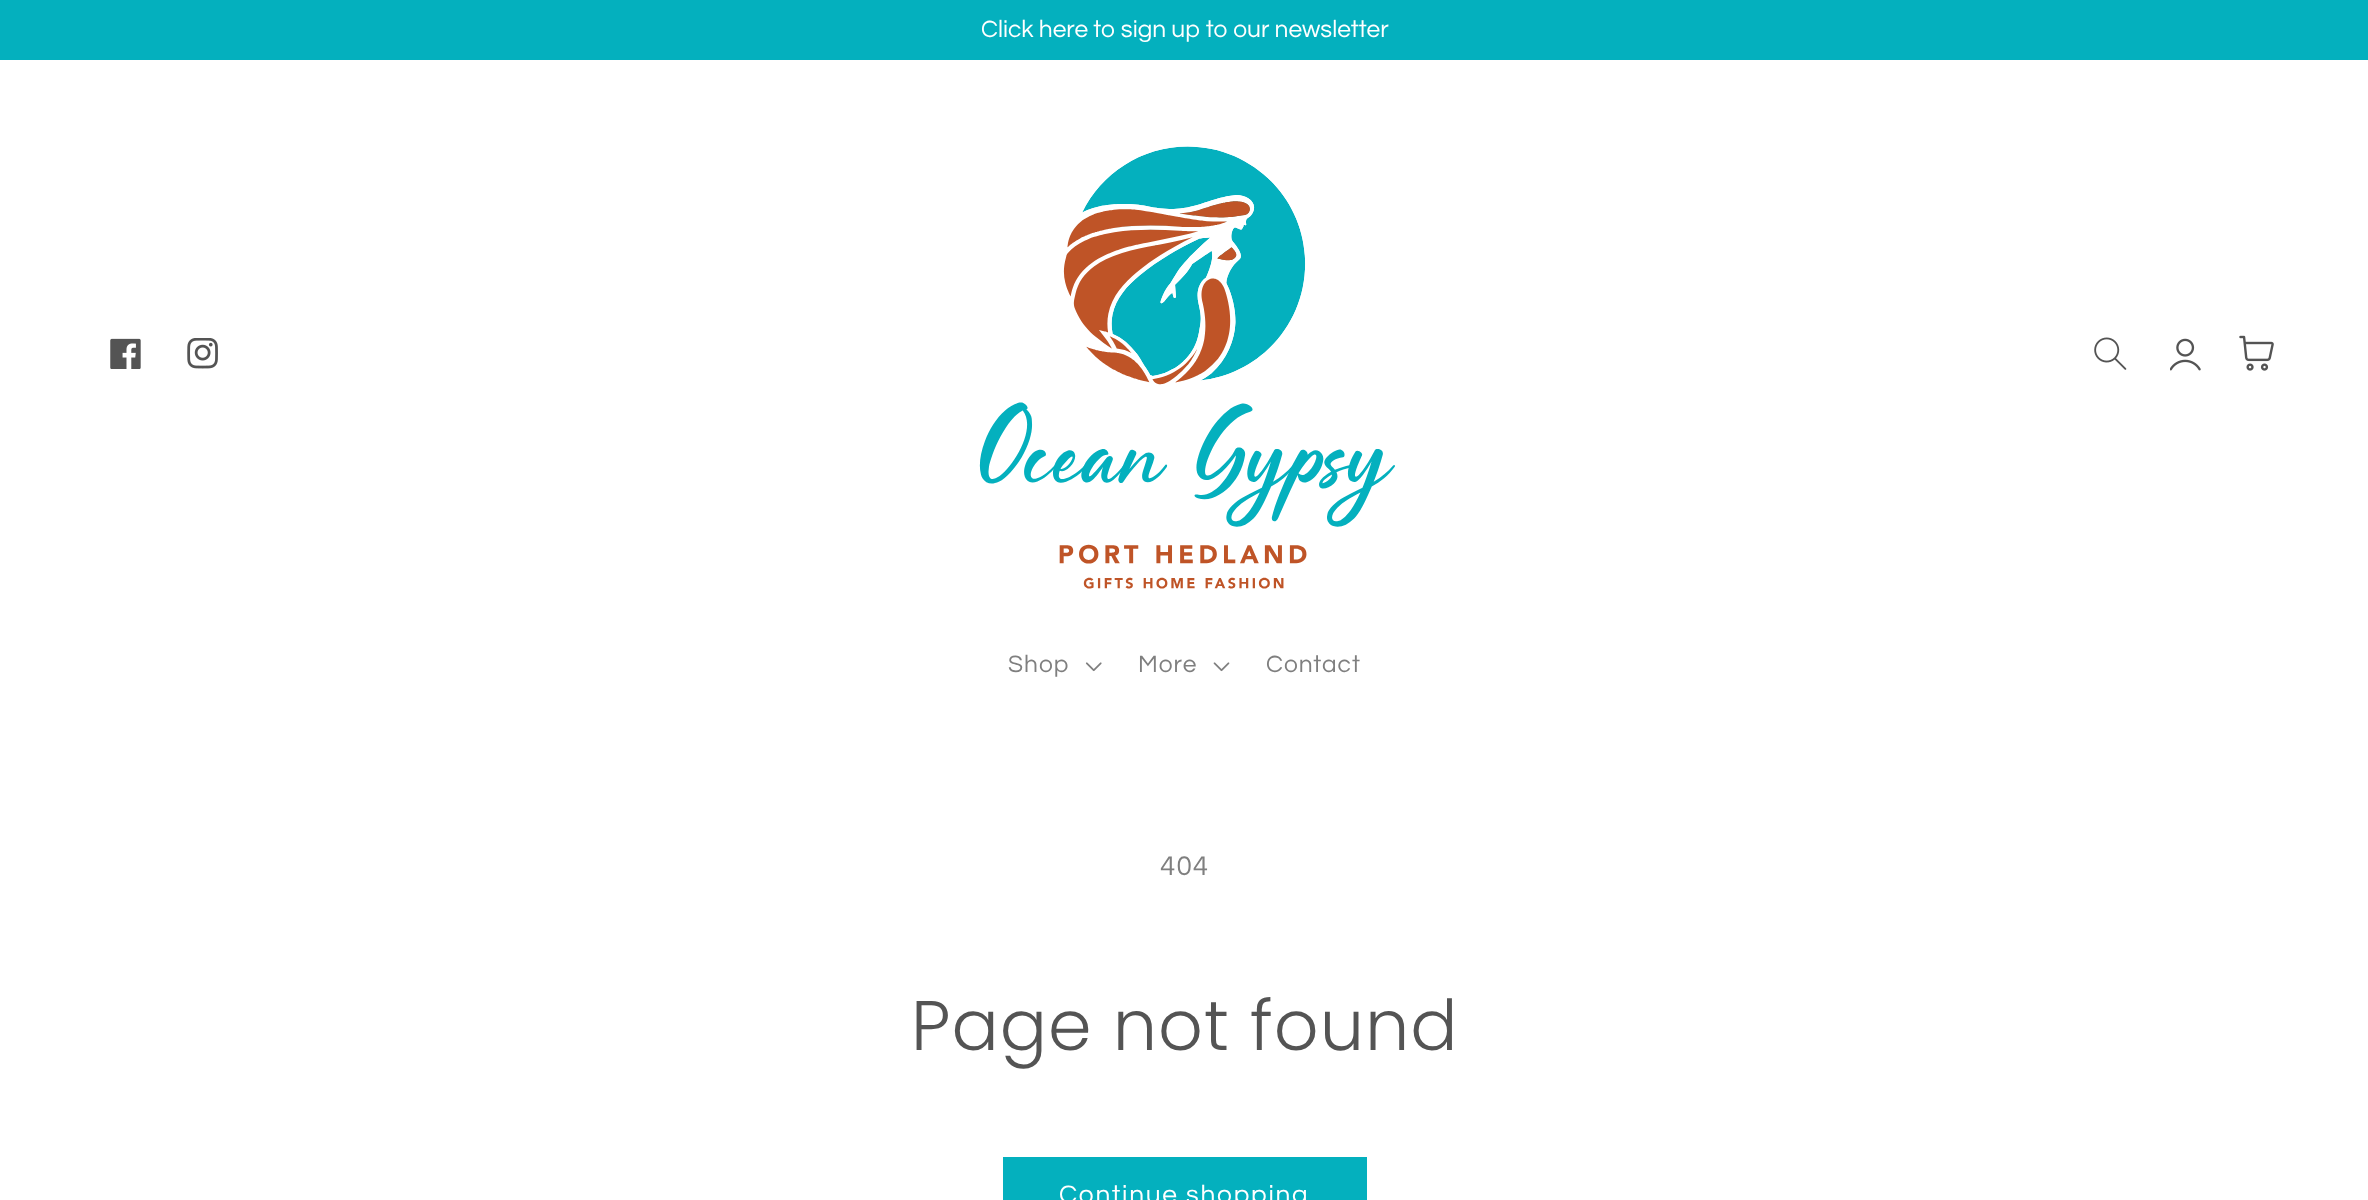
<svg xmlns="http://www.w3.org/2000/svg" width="2368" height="1200">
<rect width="100%" height="100%" fill="#fff"/>
<rect width="2368" height="60" fill="#04b0be"/>
<text x="981" y="37" style="font-family:Questrial;font-size:24.5px;fill:#fff">Click here to sign up to our newsletter</text>
<image x="110" y="338" width="31" height="31" href="media/1.png"/>
<image x="187" y="338" width="31" height="31" href="media/2.png"/>
<image x="979" y="146" width="416" height="443" href="media/3.png"/>
<image x="2094" y="337" width="33" height="33" href="media/4.png"/>
<image x="2170" y="338" width="31" height="33" href="media/5.png"/>
<image x="2239" y="335" width="35" height="36" href="media/6.png"/>
<text x="1008" y="672" style="font-family:Questrial;font-size:24.5px;letter-spacing:1px;fill:#7f7f7f">Shop</text>
<image x="1085" y="662" width="17" height="10" href="media/7.png"/>
<text x="1138" y="672" style="font-family:Questrial;font-size:24.5px;letter-spacing:1px;fill:#7f7f7f">More</text>
<image x="1213" y="662" width="17" height="10" href="media/8.png"/>
<text x="1266" y="672" style="font-family:Questrial;font-size:24.5px;letter-spacing:1px;fill:#7f7f7f">Contact</text>
<text x="1160" y="875" style="font-family:Questrial;font-size:28px;letter-spacing:1px;fill:#7f7f7f">404</text>
<text x="911" y="1050" style="font-family:Poppins;font-size:70px;font-weight:300;letter-spacing:1px;fill:#545454">Page not found</text>
<rect x="1004" y="1158" width="362" height="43" fill="none" stroke="#04b0be" stroke-width="2"/>
<rect x="1005" y="1159" width="360" height="41" fill="#04b0be"/>
<text x="1059" y="1203" style="font-family:Questrial;font-size:26.25px;letter-spacing:1.75px;fill:#fff">Continue shopping</text>
</svg>
